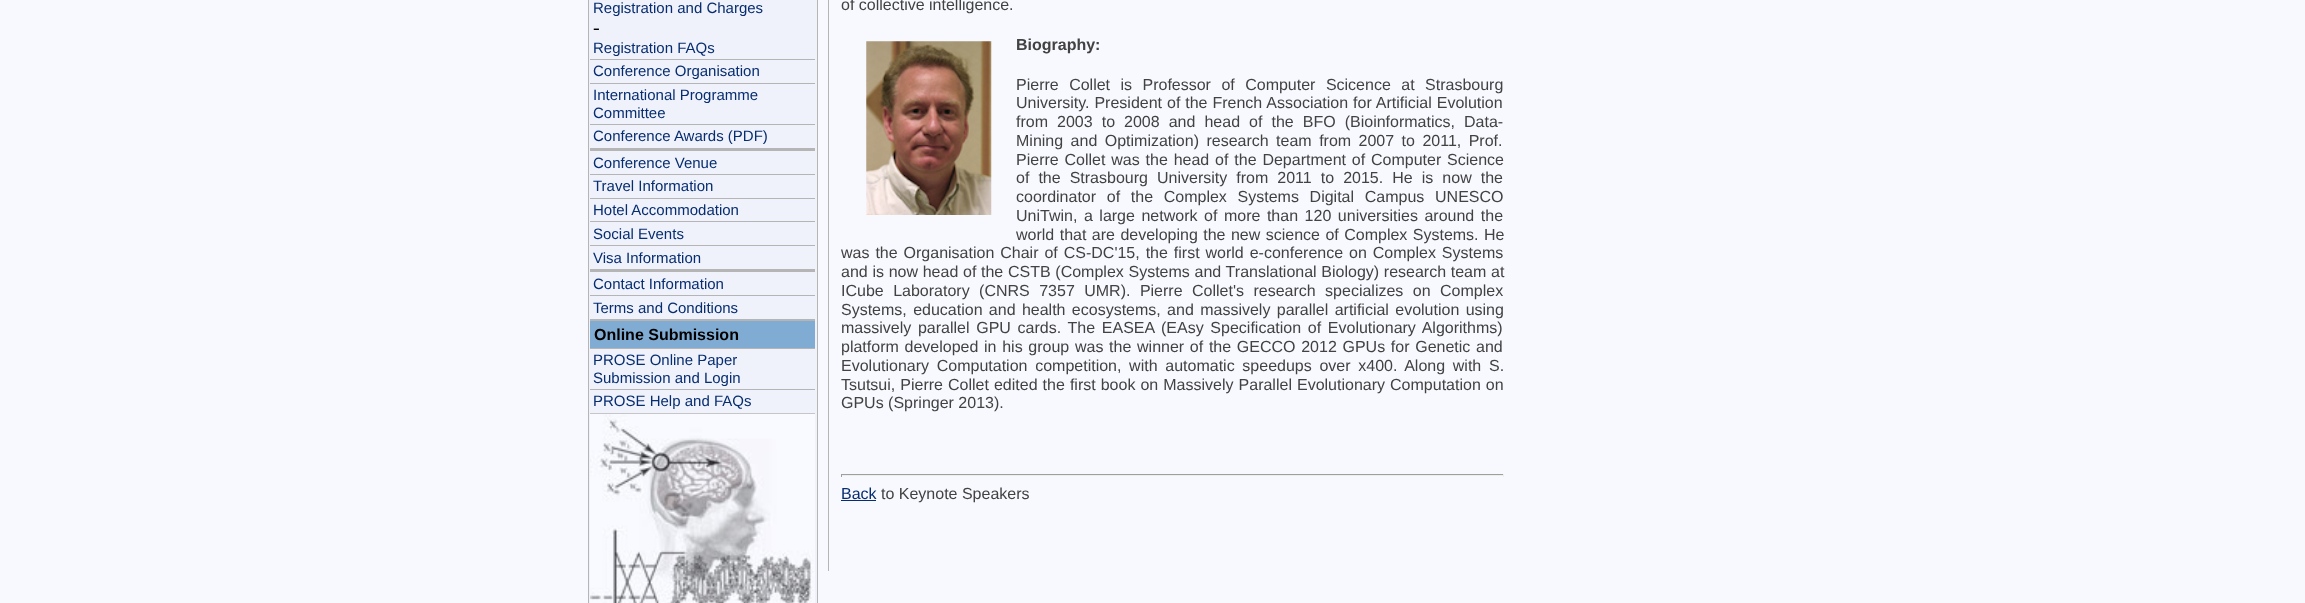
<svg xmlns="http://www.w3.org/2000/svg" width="2305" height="603">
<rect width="100%" height="100%" fill="#f8f9fe"/>
<rect x="588.5" y="-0.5" width="229" height="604" fill="#f0f2fb" stroke="#b5b5b5"/>
<text x="593" y="13" style="font-family:Liberation Sans;font-size:15px;fill:#062d70">Registration and Charges</text>
<text x="593" y="34" style="font-family:Liberation Serif;font-size:20px;fill:#000">-</text>
<text x="593" y="53" style="font-family:Liberation Sans;font-size:15px;fill:#062d70">Registration FAQs</text>
<rect x="590" y="59" width="225" height="1" fill="#b5b5b5"/>
<text x="593" y="76" style="font-family:Liberation Sans;font-size:15px;fill:#062d70">Conference Organisation</text>
<rect x="590" y="83" width="225" height="1" fill="#b5b5b5"/>
<text x="593" y="100" style="font-family:Liberation Sans;font-size:15px;fill:#062d70">International Programme</text>
<text x="593" y="118" style="font-family:Liberation Sans;font-size:15px;fill:#062d70">Committee</text>
<rect x="590" y="124" width="225" height="1" fill="#b5b5b5"/>
<text x="593" y="141" style="font-family:Liberation Sans;font-size:15px;fill:#062d70">Conference Awards (PDF)</text>
<rect x="590" y="148" width="225" height="3" fill="#b5b5b5"/>
<text x="593" y="168" style="font-family:Liberation Sans;font-size:15px;fill:#062d70">Conference Venue</text>
<rect x="590" y="174" width="225" height="1" fill="#b5b5b5"/>
<text x="593" y="191" style="font-family:Liberation Sans;font-size:15px;fill:#062d70">Travel Information</text>
<rect x="590" y="198" width="225" height="1" fill="#b5b5b5"/>
<text x="593" y="215" style="font-family:Liberation Sans;font-size:15px;fill:#062d70">Hotel Accommodation</text>
<rect x="590" y="221" width="225" height="1" fill="#b5b5b5"/>
<text x="593" y="239" style="font-family:Liberation Sans;font-size:15px;fill:#062d70">Social Events</text>
<rect x="590" y="245" width="225" height="1" fill="#b5b5b5"/>
<text x="593" y="263" style="font-family:Liberation Sans;font-size:15px;fill:#062d70">Visa Information</text>
<rect x="590" y="269" width="225" height="3" fill="#b5b5b5"/>
<text x="593" y="289" style="font-family:Liberation Sans;font-size:15px;fill:#062d70">Contact Information</text>
<rect x="590" y="295" width="225" height="1" fill="#b5b5b5"/>
<text x="593" y="313" style="font-family:Liberation Sans;font-size:15px;fill:#062d70">Terms and Conditions</text>
<rect x="590" y="319" width="225" height="2" fill="#b5b5b5"/>
<rect x="590" y="321" width="225" height="27" fill="#80acd3"/>
<text x="594" y="340" style="font-family:Liberation Sans;font-size:16px;font-weight:bold;fill:#000">Online Submission</text>
<rect x="590" y="348" width="225" height="1" fill="#b5b5b5"/>
<text x="593" y="365" style="font-family:Liberation Sans;font-size:15px;fill:#062d70">PROSE Online Paper</text>
<text x="593" y="383" style="font-family:Liberation Sans;font-size:15px;fill:#062d70">Submission and Login</text>
<rect x="590" y="389" width="225" height="1" fill="#b5b5b5"/>
<text x="593" y="406" style="font-family:Liberation Sans;font-size:15px;fill:#062d70">PROSE Help and FAQs</text>
<rect x="590" y="413" width="225" height="1" fill="#b5b5b5"/>
<image x="590" y="413" width="225" height="190" href="media/1.png"/>
<rect x="828" width="1" height="571" fill="#b5b5b5"/>
<text x="841" y="10" style="font-family:Liberation Sans;font-size:16px;fill:#424242">of collective intelligence.</text>
<image x="866" y="41" width="126" height="174" href="media/2.png"/>
<text x="1016" y="50" style="font-family:Liberation Sans;font-size:16px;font-weight:bold;fill:#424242">Biography:</text>
<text x="1016" y="90" word-spacing="6" style="font-family:Liberation Sans;font-size:16px;fill:#424242">Pierre Collet is Professor of Computer Scicence at Strasbourg</text>
<text x="1016" y="108" word-spacing="0.5" style="font-family:Liberation Sans;font-size:16px;fill:#424242">University. President of the French Association for Artificial Evolution</text>
<text x="1016" y="127" word-spacing="4.6" style="font-family:Liberation Sans;font-size:16px;fill:#424242">from 2003 to 2008 and head of the BFO (Bioinformatics, Data-</text>
<text x="1016" y="146" word-spacing="3" style="font-family:Liberation Sans;font-size:16px;fill:#424242">Mining and Optimization) research team from 2007 to 2011, Prof.</text>
<text x="1016" y="165" word-spacing="1.4" style="font-family:Liberation Sans;font-size:16px;fill:#424242">Pierre Collet was the head of the Department of Computer Science</text>
<text x="1016" y="183" word-spacing="4.6" style="font-family:Liberation Sans;font-size:16px;fill:#424242">of the Strasbourg University from 2011 to 2015. He is now the</text>
<text x="1016" y="202" word-spacing="6.25" style="font-family:Liberation Sans;font-size:16px;fill:#424242">coordinator of the Complex Systems Digital Campus UNESCO</text>
<text x="1016" y="221" word-spacing="2.1" style="font-family:Liberation Sans;font-size:16px;fill:#424242">UniTwin, a large network of more than 120 universities around the</text>
<text x="1016" y="240" word-spacing="1" style="font-family:Liberation Sans;font-size:16px;fill:#424242">world that are developing the new science of Complex Systems. He</text>
<text x="841" y="258" word-spacing="1.5" style="font-family:Liberation Sans;font-size:16px;fill:#424242">was the Organisation Chair of CS-DC'15, the first world e-conference on Complex Systems</text>
<text x="841" y="277" word-spacing="0.25" style="font-family:Liberation Sans;font-size:16px;fill:#424242">and is now head of the CSTB (Complex Systems and Translational Biology) research team at</text>
<text x="841" y="296" word-spacing="5" style="font-family:Liberation Sans;font-size:16px;fill:#424242">ICube Laboratory (CNRS 7357 UMR). Pierre Collet's research specializes on Complex</text>
<text x="841" y="315" word-spacing="1.9" style="font-family:Liberation Sans;font-size:16px;fill:#424242">Systems, education and health ecosystems, and massively parallel artificial evolution using</text>
<text x="841" y="333" word-spacing="2.25" style="font-family:Liberation Sans;font-size:16px;fill:#424242">massively parallel GPU cards. The EASEA (EAsy Specification of Evolutionary Algorithms)</text>
<text x="841" y="352" word-spacing="1.25" style="font-family:Liberation Sans;font-size:16px;fill:#424242">platform developed in his group was the winner of the GECCO 2012 GPUs for Genetic and</text>
<text x="841" y="371" word-spacing="3.25" style="font-family:Liberation Sans;font-size:16px;fill:#424242">Evolutionary Computation competition, with automatic speedups over x400. Along with S.</text>
<text x="841" y="390" word-spacing="0.6" style="font-family:Liberation Sans;font-size:16px;fill:#424242">Tsutsui, Pierre Collet edited the first book on Massively Parallel Evolutionary Computation on</text>
<text x="841" y="408" style="font-family:Liberation Sans;font-size:16px;fill:#424242">GPUs (Springer 2013).</text>
<rect x="841" y="474" width="663" height="1" fill="#9f9f9f"/>
<rect x="1503" y="474" width="1" height="3" fill="#eee"/>
<rect x="841" y="475" width="663" height="1" fill="#eee"/>
<rect x="841" y="474" width="1" height="3" fill="#9f9f9f"/>
<text x="841" y="499" style="font-family:Liberation Sans;font-size:16px;fill:#062d70">Back</text>
<rect x="841" y="500" width="35" height="1" fill="#062d70"/>
<text x="881" y="499" style="font-family:Liberation Sans;font-size:16px;fill:#424242">to Keynote Speakers</text>
</svg>
